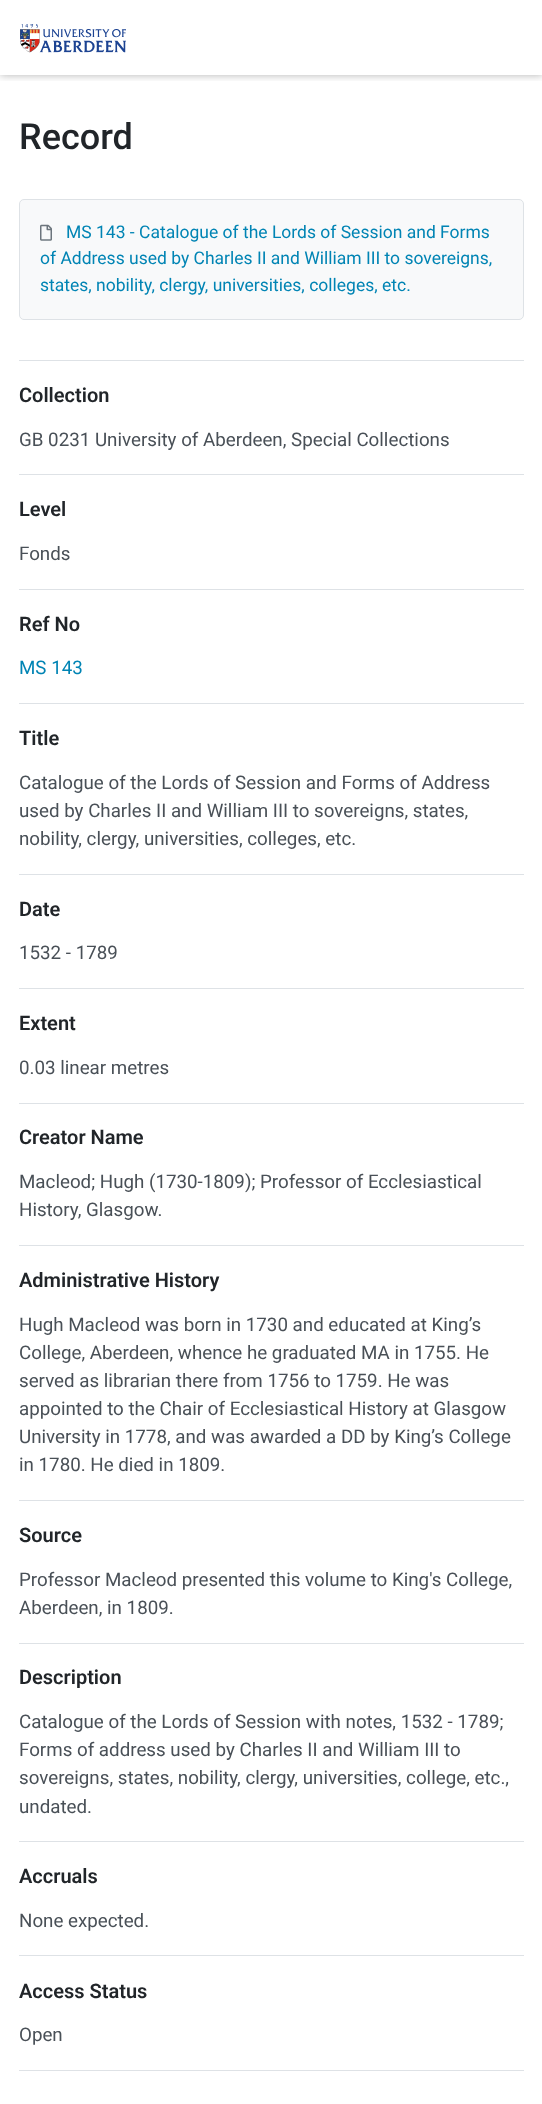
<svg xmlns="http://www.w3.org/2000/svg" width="542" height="2104">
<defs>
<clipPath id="clip1"><rect x="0" y="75" width="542" height="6"/></clipPath>
</defs>
<rect width="100%" height="100%" fill="#fff"/>
<g clip-path="url(#clip1)">
<rect width="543" height="75" fill="#0000004d" filter="blur(4px)"/>
</g>
<image x="20" y="24" width="106" height="29" href="media/1.png"/>
<text x="19" y="149" style="font-family:Roboto;font-size:36px;font-weight:500;fill:#212529">Record</text>
<rect x="19.5" y="199.5" width="504" height="120" rx="4.5" fill="#f8f9fa" stroke="#dee2e6"/>
<image x="40" y="224" width="12" height="17" href="media/2.png"/>
<text x="66" y="238" style="font-family:Roboto;font-size:17.5px;fill:#0084b4">MS 143 - Catalogue of the Lords of Session and Forms</text>
<text x="40" y="264" style="font-family:Roboto;font-size:17.5px;fill:#0084b4">of Address used by Charles II and William III to sovereigns,</text>
<text x="40" y="291" style="font-family:Roboto;font-size:17.5px;fill:#0084b4">states, nobility, clergy, universities, colleges, etc.</text>
<rect x="19" y="360" width="505" height="1" fill="#dee2e6"/>
<text x="19" y="402" style="font-family:Roboto;font-size:20px;font-weight:600;fill:#212529">Collection</text>
<text x="19" y="446" style="font-family:Roboto;font-size:18.75px;fill:#495057">GB 0231 University of Aberdeen, Special Collections</text>
<rect x="19" y="474" width="505" height="1" fill="#dee2e6"/>
<text x="19" y="516" style="font-family:Roboto;font-size:20px;font-weight:600;fill:#212529">Level</text>
<text x="19" y="560" style="font-family:Roboto;font-size:18.75px;fill:#495057">Fonds</text>
<rect x="19" y="589" width="505" height="1" fill="#dee2e6"/>
<text x="19" y="631" style="font-family:Roboto;font-size:20px;font-weight:600;fill:#212529">Ref No</text>
<text x="19" y="674" style="font-family:Roboto;font-size:18.75px;fill:#0084b4">MS 143</text>
<rect x="19" y="703" width="505" height="1" fill="#dee2e6"/>
<text x="19" y="745" style="font-family:Roboto;font-size:20px;font-weight:600;fill:#212529">Title</text>
<text x="19" y="789" style="font-family:Roboto;font-size:18.75px;fill:#495057">Catalogue of the Lords of Session and Forms of Address</text>
<text x="19" y="817" style="font-family:Roboto;font-size:18.75px;fill:#495057">used by Charles II and William III to sovereigns, states,</text>
<text x="19" y="845" style="font-family:Roboto;font-size:18.75px;fill:#495057">nobility, clergy, universities, colleges, etc.</text>
<rect x="19" y="874" width="505" height="1" fill="#dee2e6"/>
<text x="19" y="916" style="font-family:Roboto;font-size:20px;font-weight:600;fill:#212529">Date</text>
<text x="19" y="959" style="font-family:Roboto;font-size:18.75px;fill:#495057">1532 - 1789</text>
<rect x="19" y="988" width="505" height="1" fill="#dee2e6"/>
<text x="19" y="1030" style="font-family:Roboto;font-size:20px;font-weight:600;fill:#212529">Extent</text>
<text x="19" y="1074" style="font-family:Roboto;font-size:18.75px;fill:#495057">0.03 linear metres</text>
<rect x="19" y="1103" width="505" height="1" fill="#dee2e6"/>
<text x="19" y="1144" style="font-family:Roboto;font-size:20px;font-weight:600;fill:#212529">Creator Name</text>
<text x="19" y="1188" style="font-family:Roboto;font-size:18.75px;fill:#495057">Macleod; Hugh (1730-1809); Professor of Ecclesiastical</text>
<text x="19" y="1216" style="font-family:Roboto;font-size:18.75px;fill:#495057">History, Glasgow.</text>
<rect x="19" y="1245" width="505" height="1" fill="#dee2e6"/>
<text x="19" y="1287" style="font-family:Roboto;font-size:20px;font-weight:600;fill:#212529">Administrative History</text>
<text x="19" y="1331" style="font-family:Roboto;font-size:18.75px;fill:#495057">Hugh Macleod was born in 1730 and educated at King’s</text>
<text x="19" y="1359" style="font-family:Roboto;font-size:18.75px;fill:#495057">College, Aberdeen, whence he graduated MA in 1755. He</text>
<text x="19" y="1387" style="font-family:Roboto;font-size:18.75px;fill:#495057">served as librarian there from 1756 to 1759. He was</text>
<text x="19" y="1415" style="font-family:Roboto;font-size:18.75px;fill:#495057">appointed to the Chair of Ecclesiastical History at Glasgow</text>
<text x="19" y="1443" style="font-family:Roboto;font-size:18.75px;fill:#495057">University in 1778, and was awarded a DD by King’s College</text>
<text x="19" y="1471" style="font-family:Roboto;font-size:18.75px;fill:#495057">in 1780. He died in 1809.</text>
<rect x="19" y="1500" width="505" height="1" fill="#dee2e6"/>
<text x="19" y="1542" style="font-family:Roboto;font-size:20px;font-weight:600;fill:#212529">Source</text>
<text x="19" y="1586" style="font-family:Roboto;font-size:18.75px;fill:#495057">Professor Macleod presented this volume to King's College,</text>
<text x="19" y="1614" style="font-family:Roboto;font-size:18.75px;fill:#495057">Aberdeen, in 1809.</text>
<rect x="19" y="1643" width="505" height="1" fill="#dee2e6"/>
<text x="19" y="1684" style="font-family:Roboto;font-size:20px;font-weight:600;fill:#212529">Description</text>
<text x="19" y="1728" style="font-family:Roboto;font-size:18.75px;fill:#495057">Catalogue of the Lords of Session with notes, 1532 - 1789;</text>
<text x="19" y="1756" style="font-family:Roboto;font-size:18.75px;fill:#495057">Forms of address used by Charles II and William III to</text>
<text x="19" y="1784" style="font-family:Roboto;font-size:18.75px;fill:#495057">sovereigns, states, nobility, clergy, universities, college, etc.,</text>
<text x="19" y="1813" style="font-family:Roboto;font-size:18.75px;fill:#495057">undated.</text>
<rect x="19" y="1841" width="505" height="1" fill="#dee2e6"/>
<text x="19" y="1883" style="font-family:Roboto;font-size:20px;font-weight:600;fill:#212529">Accruals</text>
<text x="19" y="1927" style="font-family:Roboto;font-size:18.75px;fill:#495057">None expected.</text>
<rect x="19" y="1955" width="505" height="1" fill="#dee2e6"/>
<text x="19" y="1998" style="font-family:Roboto;font-size:20px;font-weight:600;fill:#212529">Access Status</text>
<text x="19" y="2041" style="font-family:Roboto;font-size:18.75px;fill:#495057">Open</text>
<rect x="19" y="2070" width="505" height="1" fill="#dee2e6"/>
</svg>
